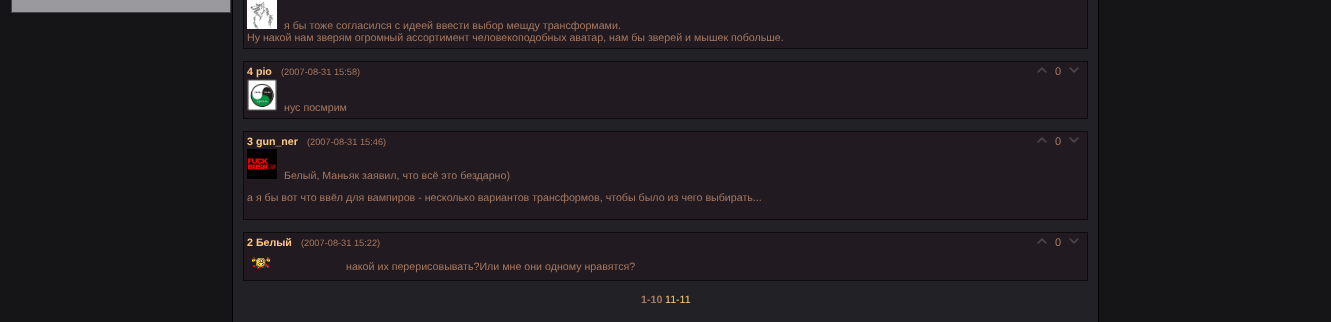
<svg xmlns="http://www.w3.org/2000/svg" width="1331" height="322">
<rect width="100%" height="100%" fill="#151517"/>
<rect x="11.5" y="-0.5" width="219" height="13" fill="#9a9a9e" stroke="#43434b"/>
<rect x="232.5" y="-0.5" width="866" height="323" fill="none" stroke="#000"/>
<rect x="233" width="865" height="322" fill="#222226"/>
<rect x="243.5" y="-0.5" width="844" height="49" fill="#211a20" stroke="#0d0a0c"/>
<image x="247" y="0" width="30" height="29" href="media/1.png"/>
<text x="284" y="29" style="font-family:Liberation Sans;font-size:10.67px;fill:#a67961">я бы тоже согласился с идеей ввести выбор мешду трансформами.</text>
<text x="247" y="41" style="font-family:Liberation Sans;font-size:10.67px;fill:#a67961">Ну накой нам зверям огромный ассортимент человекоподобных аватар, нам бы зверей и мышек побольше.</text>
<rect x="243.5" y="61.5" width="844" height="57" fill="#211a20" stroke="#0d0a0c"/>
<text x="247" y="75" style="font-family:Liberation Sans;font-size:10.67px;font-weight:bold;fill:#ffc983">4 pio</text>
<text x="281" y="75" style="font-family:Liberation Sans;font-size:9.25px;fill:#a67961">(2007-08-31 15:58)</text>
<image x="1037" y="67" width="10" height="6" href="media/2.png"/>
<text x="1055" y="75" style="font-family:Liberation Sans;font-size:11px;fill:#a67961">0</text>
<image x="1069" y="67" width="10" height="6" href="media/3.png"/>
<image x="247" y="79" width="30" height="32" href="media/4.png"/>
<text x="284" y="111" style="font-family:Liberation Sans;font-size:10.67px;fill:#a67961">нус посмрим</text>
<rect x="243.5" y="131.5" width="844" height="88" fill="#211a20" stroke="#0d0a0c"/>
<text x="247" y="145" style="font-family:Liberation Sans;font-size:10.67px;font-weight:bold;fill:#ffc983">3 gun_ner</text>
<text x="307" y="145" style="font-family:Liberation Sans;font-size:9.25px;fill:#a67961">(2007-08-31 15:46)</text>
<image x="1037" y="137" width="10" height="6" href="media/2.png"/>
<text x="1055" y="145" style="font-family:Liberation Sans;font-size:11px;fill:#a67961">0</text>
<image x="1069" y="137" width="10" height="6" href="media/3.png"/>
<image x="247" y="149" width="30" height="30" href="media/5.png"/>
<text x="284" y="179" style="font-family:Liberation Sans;font-size:10.67px;fill:#a67961">Белый, Маньяк заявил, что всё это бездарно)</text>
<text x="247" y="201" style="font-family:Liberation Sans;font-size:10.67px;fill:#a67961">а я бы вот что ввёл для вампиров - несколько вариантов трансформов, чтобы было из чего выбирать...</text>
<rect x="243.5" y="232.5" width="844" height="48" fill="#211a20" stroke="#0d0a0c"/>
<text x="247" y="246" style="font-family:Liberation Sans;font-size:10.67px;font-weight:bold;fill:#ffc983">2 Белый</text>
<text x="301" y="246" style="font-family:Liberation Sans;font-size:9.25px;fill:#a67961">(2007-08-31 15:22)</text>
<image x="1037" y="238" width="10" height="6" href="media/2.png"/>
<text x="1055" y="246" style="font-family:Liberation Sans;font-size:11px;fill:#a67961">0</text>
<image x="1069" y="238" width="10" height="6" href="media/3.png"/>
<image x="251" y="257" width="20" height="13" href="media/6.png"/>
<text x="346" y="270" style="font-family:Liberation Sans;font-size:10.67px;fill:#a67961">накой их перерисовывать?Или мне они одному нравятся?</text>
<text x="641" y="303" style="font-family:Liberation Sans;font-size:10.67px;font-weight:bold;fill:#a67961">1-10</text>
<text x="665" y="303" style="font-family:Liberation Sans;font-size:10.67px;fill:#ffc983">11-11</text>
</svg>
